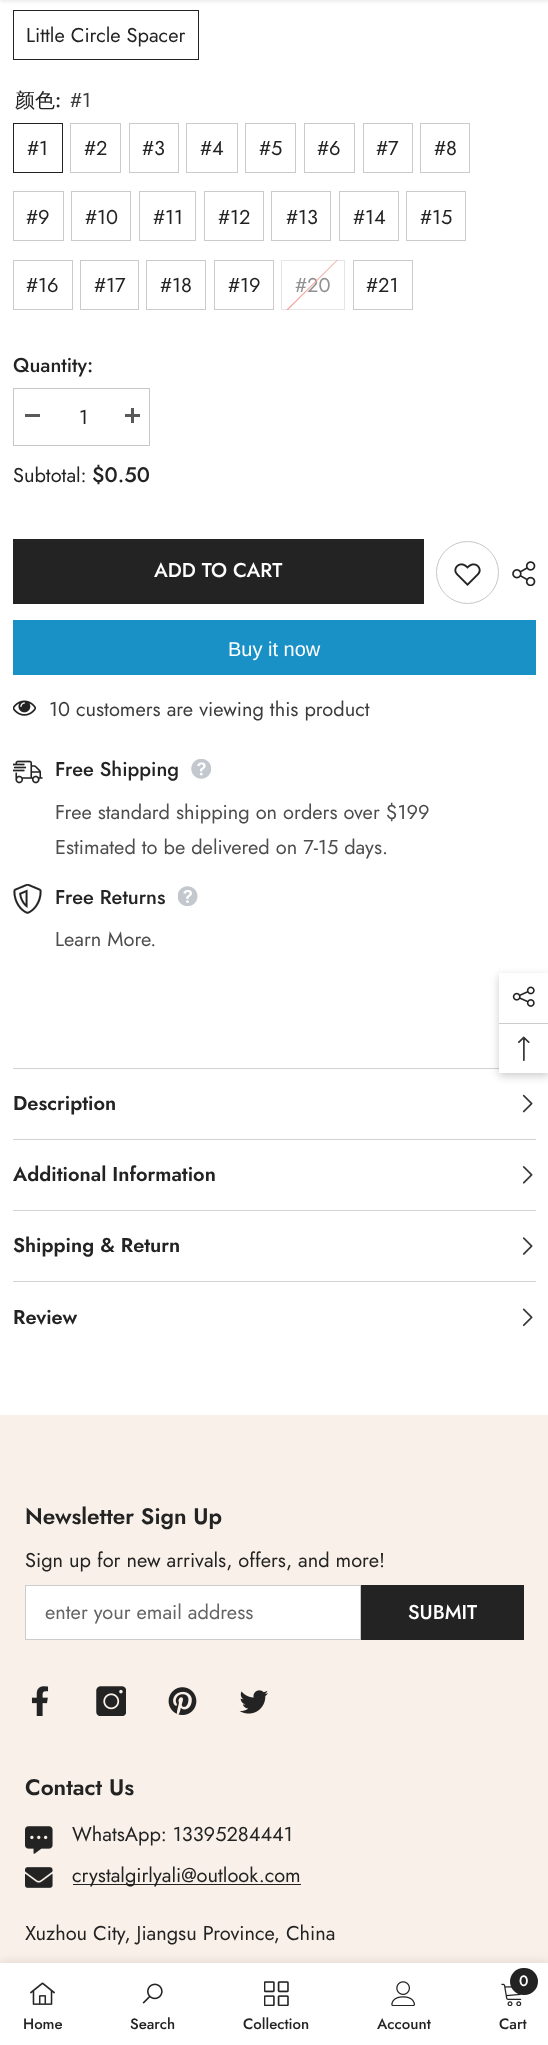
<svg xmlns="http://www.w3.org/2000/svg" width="548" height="2045">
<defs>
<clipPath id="clip1"><rect x="281" y="260" width="64" height="50"/></clipPath>
</defs>
<rect width="100%" height="100%" fill="#fff"/>
<rect y="-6" width="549" height="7" fill="#0000001a" filter="blur(2px)"/>
<rect x="13.5" y="10.5" width="185" height="49" fill="none" stroke="#232323"/>
<text x="26" y="42" style="font-family:Jost;font-size:20px;fill:#232323">Little Circle Spacer</text>
<text x="15" y="107" style="font-family:WenQuanYi Zen Hei;font-size:20px;font-weight:500;fill:#232323">颜色</text>
<text x="55" y="107" style="font-family:Jost;font-size:20px;font-weight:500;fill:#232323">:</text>
<text x="70" y="107" style="font-family:Jost;font-size:20px;fill:#3c3c3c">#1</text>
<rect x="13.5" y="123.5" width="49" height="49" fill="none" stroke="#232323"/>
<text x="27" y="155" style="font-family:Jost;font-size:20px;fill:#232323">#1</text>
<rect x="70.5" y="123.5" width="50" height="49" fill="none" stroke="#cbcbcb"/>
<text x="84" y="155" style="font-family:Jost;font-size:20px;fill:#232323">#2</text>
<rect x="129.5" y="123.5" width="49" height="49" fill="none" stroke="#cbcbcb"/>
<text x="142" y="155" style="font-family:Jost;font-size:20px;fill:#232323">#3</text>
<rect x="186.5" y="123.5" width="51" height="49" fill="none" stroke="#cbcbcb"/>
<text x="200" y="155" style="font-family:Jost;font-size:20px;fill:#232323">#4</text>
<rect x="245.5" y="123.5" width="50" height="49" fill="none" stroke="#cbcbcb"/>
<text x="259" y="155" style="font-family:Jost;font-size:20px;fill:#232323">#5</text>
<rect x="304.5" y="123.5" width="50" height="49" fill="none" stroke="#cbcbcb"/>
<text x="317" y="155" style="font-family:Jost;font-size:20px;fill:#232323">#6</text>
<rect x="363.5" y="123.5" width="49" height="49" fill="none" stroke="#cbcbcb"/>
<text x="376" y="155" style="font-family:Jost;font-size:20px;fill:#232323">#7</text>
<rect x="420.5" y="123.5" width="49" height="49" fill="none" stroke="#cbcbcb"/>
<text x="434" y="155" style="font-family:Jost;font-size:20px;fill:#232323">#8</text>
<rect x="13.5" y="191.5" width="50" height="49" fill="none" stroke="#cbcbcb"/>
<text x="26" y="224" style="font-family:Jost;font-size:20px;fill:#232323">#9</text>
<rect x="71.5" y="191.5" width="59" height="49" fill="none" stroke="#cbcbcb"/>
<text x="85" y="224" style="font-family:Jost;font-size:20px;fill:#232323">#10</text>
<rect x="139.5" y="191.5" width="56" height="49" fill="none" stroke="#cbcbcb"/>
<text x="153" y="224" style="font-family:Jost;font-size:20px;fill:#232323">#11</text>
<rect x="204.5" y="191.5" width="59" height="49" fill="none" stroke="#cbcbcb"/>
<text x="218" y="224" style="font-family:Jost;font-size:20px;fill:#232323">#12</text>
<rect x="271.5" y="191.5" width="59" height="49" fill="none" stroke="#cbcbcb"/>
<text x="286" y="224" style="font-family:Jost;font-size:20px;fill:#232323">#13</text>
<rect x="339.5" y="191.5" width="59" height="49" fill="none" stroke="#cbcbcb"/>
<text x="353" y="224" style="font-family:Jost;font-size:20px;fill:#232323">#14</text>
<rect x="406.5" y="191.5" width="59" height="49" fill="none" stroke="#cbcbcb"/>
<text x="420" y="224" style="font-family:Jost;font-size:20px;fill:#232323">#15</text>
<rect x="13.5" y="260.5" width="59" height="49" fill="none" stroke="#cbcbcb"/>
<text x="26" y="292" style="font-family:Jost;font-size:20px;fill:#232323">#16</text>
<rect x="80.5" y="260.5" width="58" height="49" fill="none" stroke="#cbcbcb"/>
<text x="94" y="292" style="font-family:Jost;font-size:20px;fill:#232323">#17</text>
<rect x="146.5" y="260.5" width="59" height="49" fill="none" stroke="#cbcbcb"/>
<text x="160" y="292" style="font-family:Jost;font-size:20px;fill:#232323">#18</text>
<rect x="214.5" y="260.5" width="59" height="49" fill="none" stroke="#cbcbcb"/>
<text x="228" y="292" style="font-family:Jost;font-size:20px;fill:#232323">#19</text>
<rect x="281.5" y="260.5" width="63" height="49" fill="none" stroke="#e5e5e5"/>
<text x="295" y="292" style="font-family:Jost;font-size:20px;fill:#919191">#20</text>
<g clip-path="url(#clip1)">
<path d="M281 315l63-62v1l-62 62z" fill="#f4a8a2"/>
</g>
<rect x="353.5" y="260.5" width="59" height="49" fill="none" stroke="#cbcbcb"/>
<text x="366" y="292" style="font-family:Jost;font-size:20px;fill:#232323">#21</text>
<text x="13" y="372" style="font-family:Jost;font-size:20px;font-weight:500;fill:#232323">Quantity:</text>
<rect x="13.5" y="388.5" width="136" height="57" fill="none" stroke="#c7c7c7"/>
<rect x="25" y="414" width="15" height="3" fill="#5a5a5a"/>
<text x="79" y="424" style="font-family:Jost;font-size:20px;fill:#232323">1</text>
<rect x="125" y="414" width="15" height="3" fill="#5a5a5a"/>
<rect x="131" y="408" width="3" height="15" fill="#5a5a5a"/>
<text x="13" y="482" style="font-family:Jost;font-size:20px;fill:#232323">Subtotal:</text>
<text x="92" y="482" style="font-family:Jost;font-size:21px;font-weight:500;fill:#232323">$0.50</text>
<rect x="13" y="539" width="411" height="65" fill="#232323"/>
<text x="154" y="577" style="font-family:Jost;font-size:20px;font-weight:500;fill:#fff">ADD TO CART</text>
<circle cx="467.5" cy="572.5" r="31" fill="none" stroke="#c7c7c7"/>
<image x="454" y="563" width="27" height="23" href="media/1.png"/>
<image x="512" y="561" width="24" height="25" href="media/2.png"/>
<rect x="13" y="620" width="523" height="55" fill="#1990c6"/>
<text x="228" y="656" style="font-family:Liberation Sans;font-size:20px;fill:#fff">Buy it now</text>
<image x="13" y="700" width="23" height="16" href="media/3.png"/>
<text x="49" y="716" style="font-family:Jost;font-size:20px;fill:#3c3c3c">10 customers are viewing this product</text>
<image x="13" y="760" width="30" height="24" href="media/4.png"/>
<text x="55" y="776" style="font-family:Jost;font-size:20px;font-weight:500;fill:#232323">Free Shipping</text>
<image x="191" y="759" width="20" height="20" href="media/5.png"/>
<text x="55" y="819" style="font-family:Jost;font-size:20px;fill:#4d4d4d">Free standard shipping on orders over $199</text>
<text x="55" y="854" style="font-family:Jost;font-size:20px;fill:#4d4d4d">Estimated to be delivered on 7-15 days.</text>
<image x="13" y="884" width="29" height="30" href="media/6.png"/>
<text x="55" y="904" style="font-family:Jost;font-size:20px;font-weight:500;fill:#232323">Free Returns</text>
<image x="178" y="886" width="20" height="20" href="media/7.png"/>
<text x="55" y="946" style="font-family:Jost;font-size:20px;fill:#4d4d4d">Learn More.</text>
<rect x="13" y="1068" width="486" height="1" fill="#d3d3d3"/>
<text x="13" y="1110" style="font-family:Jost;font-size:20px;font-weight:600;fill:#232323">Description</text>
<image x="522" y="1094" width="11" height="19" href="media/8.png"/>
<rect x="13" y="1139" width="523" height="1" fill="#d3d3d3"/>
<text x="13" y="1181" style="font-family:Jost;font-size:20px;font-weight:600;fill:#232323">Additional Information</text>
<image x="522" y="1166" width="11" height="18" href="media/9.png"/>
<rect x="13" y="1210" width="523" height="1" fill="#d3d3d3"/>
<text x="13" y="1252" style="font-family:Jost;font-size:20px;font-weight:600;fill:#232323">Shipping &amp; Return</text>
<image x="522" y="1237" width="11" height="18" href="media/10.png"/>
<rect x="13" y="1281" width="523" height="1" fill="#d3d3d3"/>
<text x="13" y="1324" style="font-family:Jost;font-size:20px;font-weight:600;fill:#232323">Review</text>
<image x="522" y="1308" width="11" height="19" href="media/11.png"/>
<rect y="1415" width="548" height="548" fill="#f9f1e9"/>
<text x="25" y="1524" style="font-family:Jost;font-size:22.5px;font-weight:600;fill:#232323">Newsletter Sign Up</text>
<text x="25" y="1567" style="font-family:Jost;font-size:20px;fill:#232323">Sign up for new arrivals, offers, and more!</text>
<rect x="25.5" y="1585.5" width="335" height="54" fill="#fff" stroke="#ccc"/>
<text x="45" y="1619" style="font-family:Jost;font-size:20px;fill:#646464">enter your email address</text>
<rect x="361" y="1585" width="163" height="55" fill="#232323"/>
<text x="408" y="1619" style="font-family:Jost;font-size:20px;font-weight:500;fill:#fff">SUBMIT</text>
<image x="31" y="1686" width="18" height="30" href="media/12.png"/>
<image x="96" y="1686" width="30" height="30" href="media/13.png"/>
<image x="168" y="1687" width="29" height="28" href="media/14.png"/>
<image x="239" y="1690" width="29" height="24" href="media/15.png"/>
<text x="25" y="1795" style="font-family:Jost;font-size:22.5px;font-weight:600;fill:#232323">Contact Us</text>
<image x="25" y="1826" width="28" height="28" href="media/16.png"/>
<text x="72" y="1841" style="font-family:Jost;font-size:20px;fill:#232323">WhatsApp: 13395284441</text>
<image x="25" y="1867" width="28" height="21" href="media/17.png"/>
<rect x="73" y="1884" width="228" height="1" fill="#232323"/>
<text x="72" y="1882" style="font-family:Jost;font-size:20px;fill:#232323">crystalgirlyali@outlook.com</text>
<text x="25" y="1940" style="font-family:Jost;font-size:20px;fill:#232323">Xuzhou City, Jiangsu Province, China</text>
<rect y="1963" width="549" height="82" fill="#0000001f" filter="blur(5.5px)"/>
<rect y="1963" width="548" height="82" fill="#fff"/>
<image x="30" y="1982" width="25" height="23" href="media/18.png"/>
<text x="23" y="2029" style="font-family:Jost;font-size:15px;font-weight:500;fill:#232323">Home</text>
<image x="142" y="1983" width="21" height="21" href="media/19.png"/>
<text x="130" y="2029" style="font-family:Jost;font-size:15px;font-weight:500;fill:#232323">Search</text>
<image x="264" y="1981" width="25" height="25" href="media/20.png"/>
<text x="243" y="2029" style="font-family:Jost;font-size:15px;font-weight:500;fill:#232323">Collection</text>
<image x="391" y="1981" width="24" height="25" href="media/21.png"/>
<text x="377" y="2029" style="font-family:Jost;font-size:15px;font-weight:500;fill:#232323">Account</text>
<image x="501" y="1983" width="21" height="23" href="media/22.png"/>
<rect x="510" y="1968" width="28" height="27" rx="13.5" fill="#232323"/>
<text x="519" y="1986" style="font-family:Jost;font-size:15px;font-weight:500;fill:#fff">0</text>
<text x="499" y="2029" style="font-family:Jost;font-size:15px;font-weight:500;fill:#232323">Cart</text>
<rect x="499" y="976" width="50" height="100" fill="#00000033" filter="blur(4.5px)"/>
<rect x="499" y="973" width="49" height="100" fill="#fff"/>
<image x="512" y="986" width="23" height="21" href="media/23.png"/>
<rect x="499" y="1023" width="49" height="1" fill="#ccc"/>
<image x="518" y="1036" width="12" height="25" href="media/24.png"/>
</svg>
